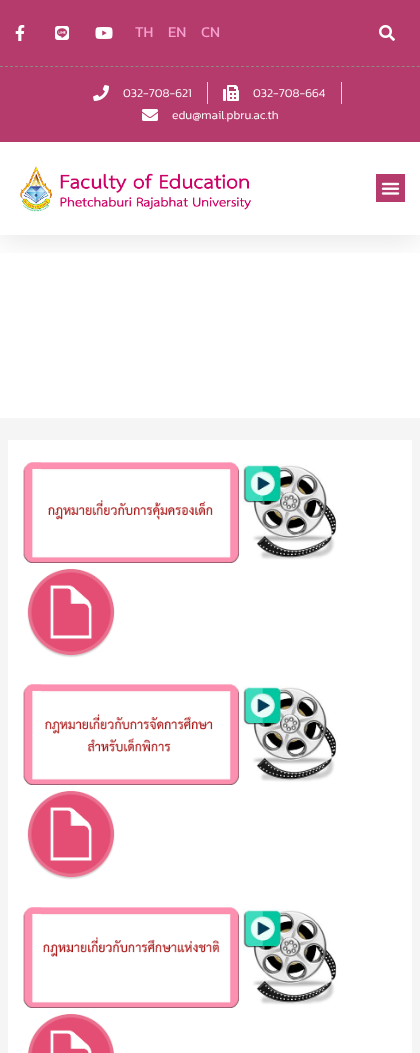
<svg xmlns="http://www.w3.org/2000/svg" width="420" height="1053">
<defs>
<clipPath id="clip1"><rect x="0" y="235" width="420" height="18"/></clipPath>
</defs>
<rect width="100%" height="100%" fill="#f5f5f5"/>
<image x="0" y="142" width="420" height="276" href="media/1.png"/>
<g clip-path="url(#clip1)">
<rect y="5" width="420" height="235" fill="#0000001a" filter="blur(15px)"/>
</g>
<rect width="420" height="142" fill="#b43b6b"/>
<image x="15" y="25" width="10" height="16" href="media/2.png"/>
<image x="55" y="26" width="15" height="14" href="media/3.png"/>
<image x="95" y="27" width="18" height="12" href="media/4.png"/>
<text x="135" y="37" style="font-family:Kanit;font-size:15px;fill:#f8a1d1">TH</text>
<text x="168" y="37" style="font-family:Kanit;font-size:15px;fill:#f8a1d1">EN</text>
<text x="201" y="37" style="font-family:Kanit;font-size:15px;fill:#f8a1d1">CN</text>
<image x="379" y="25" width="16" height="16" href="media/5.png"/>
<path d="M0 66.5h420" fill="none" stroke="#958484" stroke-dasharray="3 2.02"/>
<image x="93" y="85" width="16" height="16" href="media/6.png"/>
<text x="123" y="97" style="font-family:Kanit;font-size:12px;font-weight:300;fill:#fff">032-708-621</text>
<rect x="207" y="82" width="1" height="22" fill="#ddd"/>
<image x="223" y="85" width="16" height="16" href="media/7.png"/>
<text x="253" y="97" style="font-family:Kanit;font-size:12px;font-weight:300;fill:#fff">032-708-664</text>
<rect x="341" y="82" width="1" height="22" fill="#ddd"/>
<image x="142" y="109" width="16" height="12" href="media/8.png"/>
<text x="172" y="119" style="font-family:Kanit;font-size:12px;font-weight:300;fill:#fff">edu@mail.pbru.ac.th</text>
<image x="20" y="166" width="231" height="46" href="media/9.png"/>
<rect x="376" y="174" width="29" height="28" fill="#b43b6b"/>
<image x="381" y="182" width="19" height="13" href="media/10.png"/>
<rect x="8" y="440" width="404" height="613" fill="#fff"/>
<image x="23" y="462" width="216" height="101" href="media/11.png"/>
<image x="243" y="464" width="94" height="96" href="media/12.png"/>
<image x="27" y="568" width="88" height="90" href="media/13.png"/>
<image x="23" y="684" width="216" height="101" href="media/14.png"/>
<image x="243" y="686" width="94" height="96" href="media/15.png"/>
<image x="27" y="790" width="88" height="90" href="media/13.png"/>
<image x="23" y="907" width="216" height="101" href="media/16.png"/>
<image x="243" y="909" width="94" height="96" href="media/12.png"/>
<image x="28" y="1013" width="86" height="40" href="media/17.png"/>
</svg>
